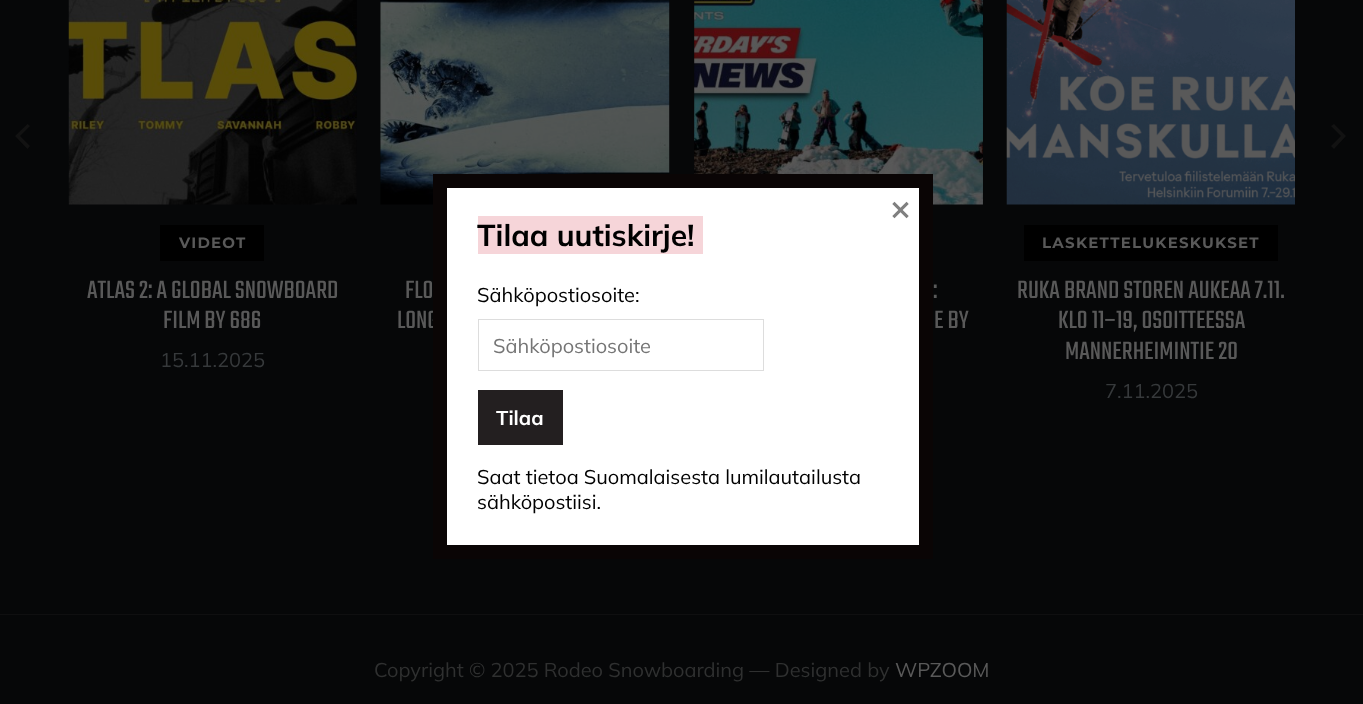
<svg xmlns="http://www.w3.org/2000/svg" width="1363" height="704">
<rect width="100%" height="100%" fill="#060708"/>
<image x="380" y="0" width="290" height="205" href="media/2.png"/>
<text x="397" y="328" style="font-family:Teko;font-size:27.5px;fill:#595959">LONG</text>
<image x="694" y="0" width="289" height="205" href="media/3.png"/>
<rect x="440" y="181" width="486" height="371" fill="#fff" stroke="#0a0505" stroke-width="14"/>
<text x="890" y="220" style="font-family:Mulish;font-size:35px;font-weight:bold;fill:#808080">×</text>
<rect x="478" y="216" width="225" height="38" fill="#f6d5d9"/>
<text x="477" y="246" style="font-family:Mulish;font-size:30px;font-weight:bold;fill:#000">Tilaa uutiskirje!</text>
<text x="477" y="302" style="font-family:Mulish;font-size:20px;fill:#000">Sähköpostiosoite:</text>
<rect x="478.5" y="319.5" width="285" height="51" fill="none" stroke="#ddd"/>
<text x="493" y="353" style="font-family:Mulish;font-size:20px;fill:#757575">Sähköpostiosoite</text>
<rect x="478" y="390" width="85" height="55" fill="#231f20"/>
<text x="496" y="425" style="font-family:Mulish;font-size:20px;font-weight:bold;fill:#fff">Tilaa</text>
<text x="477" y="484" style="font-family:Mulish;font-size:20px;fill:#000">Saat tietoa Suomalaisesta lumilautailusta</text>
<text x="477" y="509" style="font-family:Mulish;font-size:20px;fill:#000">sähköpostiisi.</text>
<path d="M15 136l12.5 13l2.5-3l-10-10l10-10l-2.5-2z" fill="#121212"/>
<path d="M1346 136l-12-12l-3 2l10 10l-10 10l3 3z" fill="#121212"/>
<image x="68" y="0" width="289" height="205" href="media/1.png"/>
<rect x="160" y="225" width="104" height="36" fill="#000"/>
<text x="179" y="248" style="font-family:Montserrat;font-size:15px;font-weight:bold;letter-spacing:1.25px;fill:#595959">VIDEOT</text>
<text x="87" y="298" style="font-family:Teko;font-size:27.5px;fill:#595959">ATLAS 2: A GLOBAL SNOWBOARD</text>
<text x="163" y="328" style="font-family:Teko;font-size:27.5px;fill:#595959">FILM BY 686</text>
<text x="160" y="367" style="font-family:Mulish;font-size:20px;fill:#36393b">15.11.2025</text>
<text x="405" y="298" style="font-family:Teko;font-size:27.5px;fill:#595959">FLO</text>
<text x="933" y="298" style="font-family:Teko;font-size:27.5px;fill:#595959">:</text>
<text x="934" y="328" style="font-family:Teko;font-size:27.5px;fill:#595959">E BY</text>
<image x="1006" y="0" width="289" height="205" href="media/4.png"/>
<rect x="1024" y="225" width="254" height="36" fill="#000"/>
<text x="1042" y="248" style="font-family:Montserrat;font-size:15px;font-weight:bold;letter-spacing:1.25px;fill:#595959">LASKETTELUKESKUKSET</text>
<text x="1017" y="298" style="font-family:Teko;font-size:27.5px;fill:#595959">RUKA BRAND STOREN AUKEAA 7.11.</text>
<text x="1058" y="328" style="font-family:Teko;font-size:27.5px;fill:#595959">KLO 11–19, OSOITTEESSA</text>
<text x="1065" y="359" style="font-family:Teko;font-size:27.5px;fill:#595959">MANNERHEIMINTIE 20</text>
<text x="1105" y="398" style="font-family:Mulish;font-size:20px;fill:#36393b">7.11.2025</text>
<rect y="614" width="1363" height="1" fill="#0f0f10"/>
<text x="374" y="677" style="font-family:Mulish;font-size:20px;fill:#2f3030">Copyright © 2025 Rodeo Snowboarding — Designed by</text>
<text x="895" y="677" style="font-family:Mulish;font-size:20px;fill:#595959">WPZOOM</text>
</svg>
